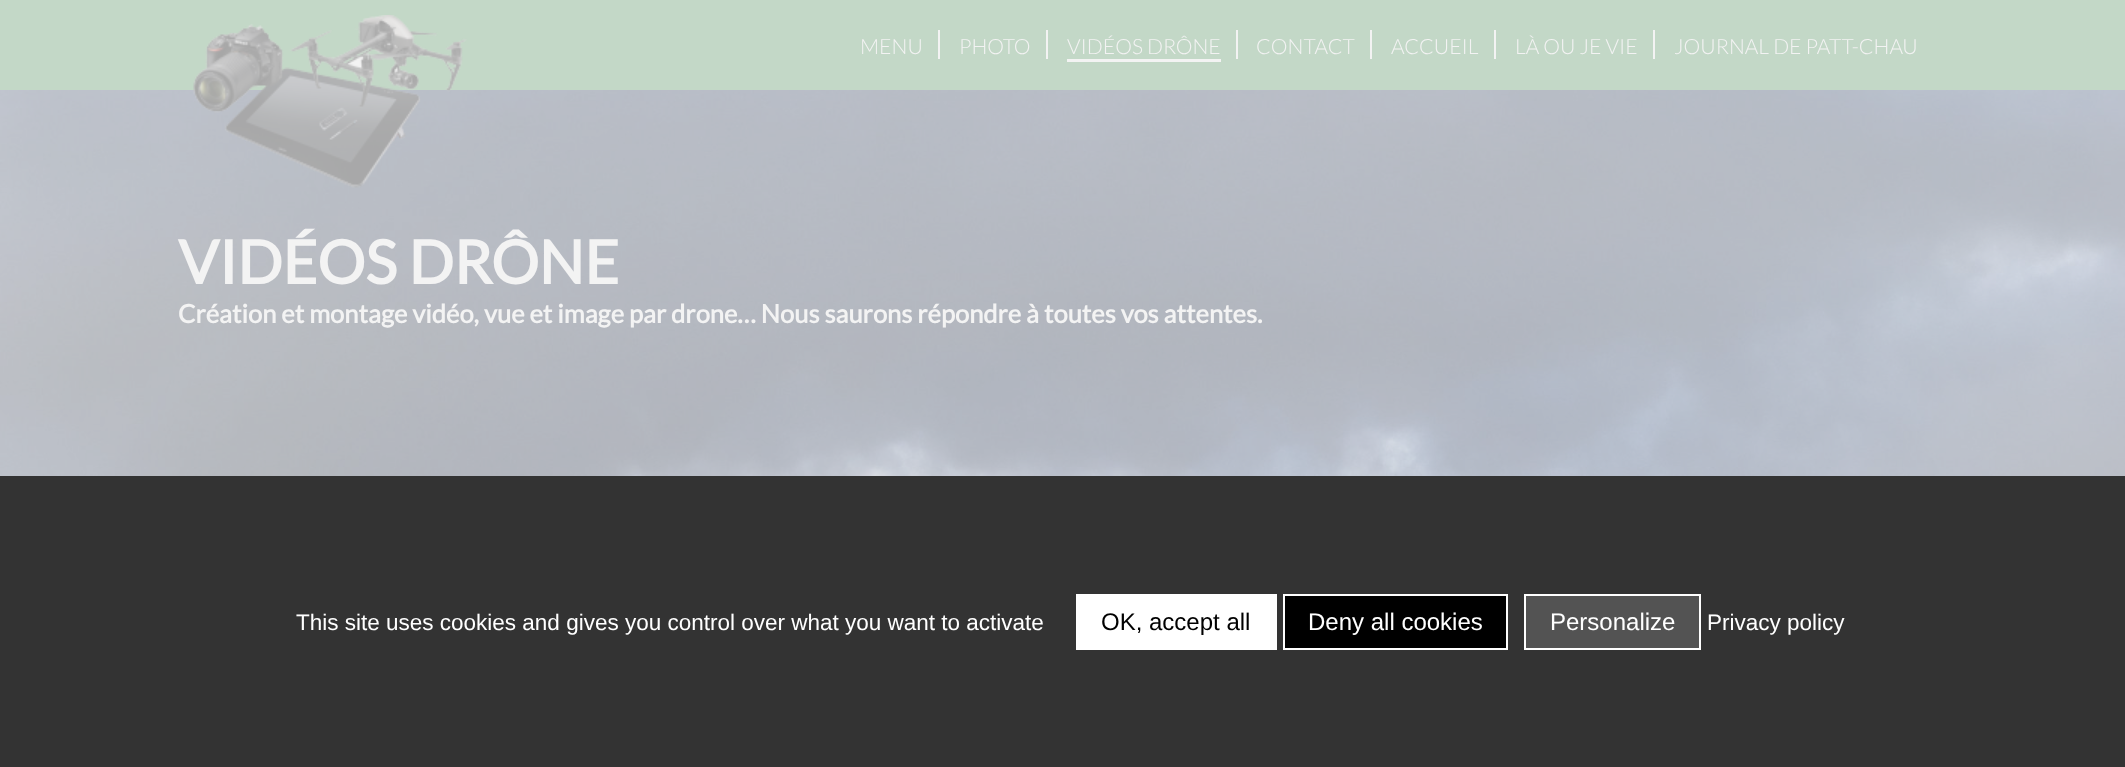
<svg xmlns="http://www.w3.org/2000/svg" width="2125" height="767">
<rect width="100%" height="100%" fill="#c3d8c7"/>
<image x="0" y="90" width="2125" height="386" href="media/2.png"/>
<image x="193" y="15" width="274" height="173" href="media/1.png"/>
<rect x="938" y="30" width="2" height="29" fill="#f3f3f3"/>
<text x="860" y="54" style="font-family:Lato;font-size:21px;font-weight:300;fill:#f3f3f3">MENU</text>
<rect x="1046" y="30" width="2" height="29" fill="#f3f3f3"/>
<text x="959" y="54" style="font-family:Lato;font-size:21px;font-weight:300;fill:#f3f3f3">PHOTO</text>
<rect x="1236" y="30" width="2" height="29" fill="#f3f3f3"/>
<text x="1067" y="54" style="font-family:Lato;font-size:21px;font-weight:300;fill:#f3f3f3">VIDÉOS DRÔNE</text>
<rect x="1067" y="59" width="154" height="3" fill="#f3f3f3"/>
<rect x="1370" y="30" width="2" height="29" fill="#f3f3f3"/>
<text x="1256" y="54" style="font-family:Lato;font-size:21px;font-weight:300;fill:#f3f3f3">CONTACT</text>
<rect x="1494" y="30" width="2" height="29" fill="#f3f3f3"/>
<text x="1391" y="54" style="font-family:Lato;font-size:21px;font-weight:300;fill:#f3f3f3">ACCUEIL</text>
<rect x="1653" y="30" width="2" height="29" fill="#f3f3f3"/>
<text x="1515" y="54" style="font-family:Lato;font-size:21px;font-weight:300;fill:#f3f3f3">LÀ OU JE VIE</text>
<text x="1674" y="54" style="font-family:Lato;font-size:21px;font-weight:300;fill:#f3f3f3">JOURNAL DE PATT-CHAU</text>
<text x="178" y="284" style="font-family:Lato;font-size:60px;font-weight:bold;fill:#f3f3f3">VIDÉOS DRÔNE</text>
<text x="178" y="323" style="font-family:Lato;font-size:25.5px;font-weight:bold;fill:#f3f3f3">Création et montage vidéo, vue et image par drone… Nous saurons répondre à toutes vos attentes.</text>
<rect y="476" width="2125" height="291" fill="#333"/>
<text x="296" y="630" style="font-family:Liberation Sans;font-size:22.5px;fill:#fff">This site uses cookies and gives you control over what you want to activate</text>
<rect x="1076" y="594" width="201" height="56" fill="#fff"/>
<text x="1101" y="630" style="font-family:Liberation Sans;font-size:24px;fill:#000">OK, accept all</text>
<rect x="1284" y="595" width="223" height="54" fill="#000" stroke="#fff" stroke-width="2"/>
<text x="1308" y="630" style="font-family:Liberation Sans;font-size:24px;fill:#fff">Deny all cookies</text>
<rect x="1525" y="595" width="175" height="54" fill="#535353" stroke="#fff" stroke-width="2"/>
<text x="1550" y="630" style="font-family:Liberation Sans;font-size:24px;fill:#fff">Personalize</text>
<text x="1707" y="630" style="font-family:Liberation Sans;font-size:22.5px;fill:#fff">Privacy policy</text>
</svg>
